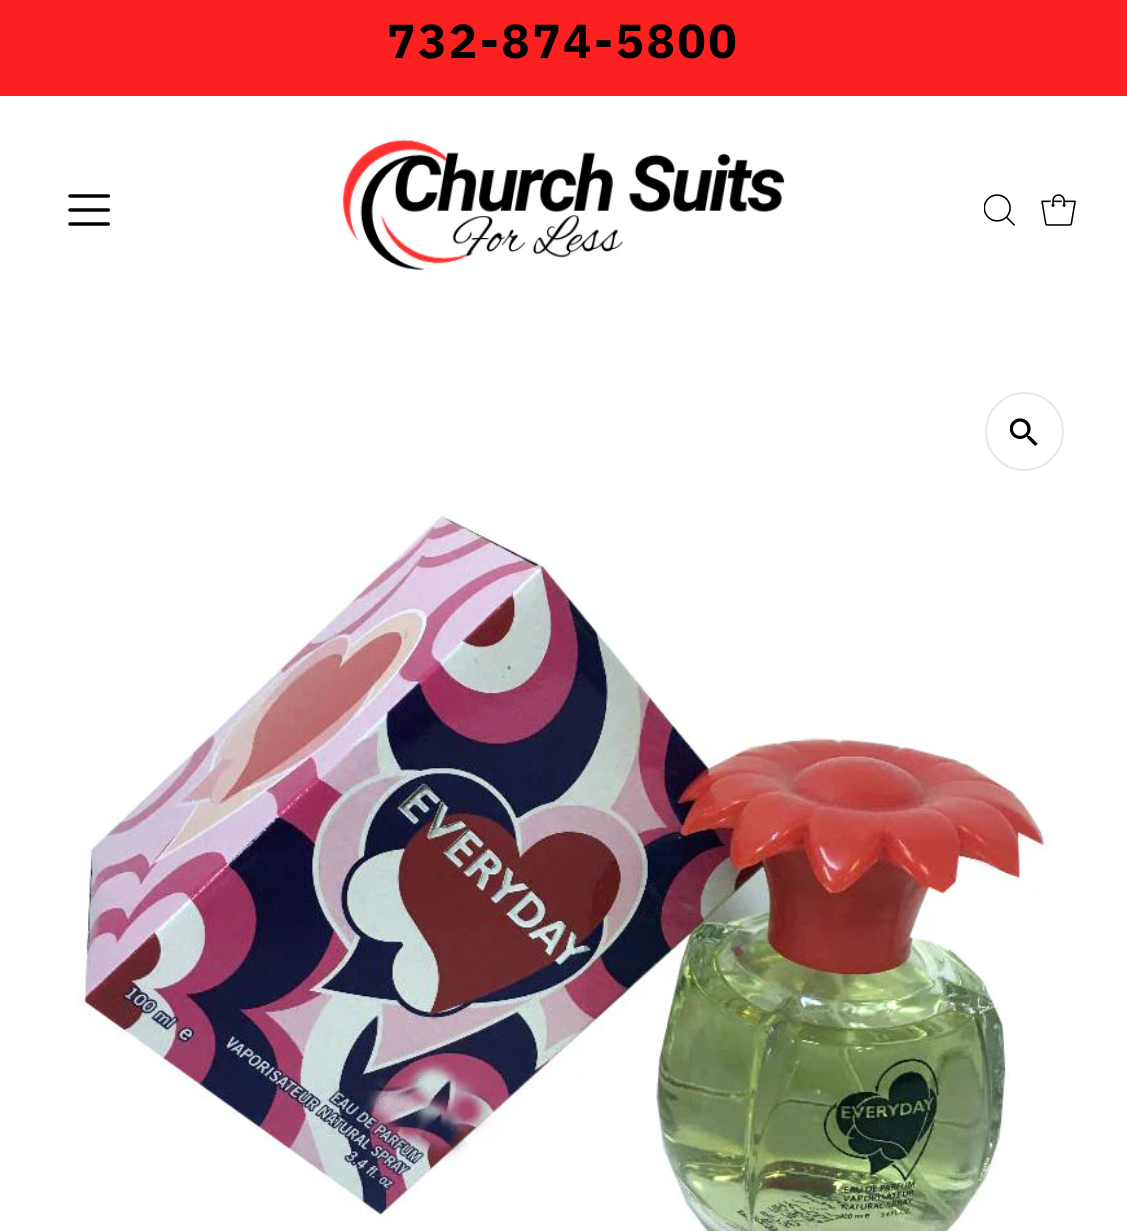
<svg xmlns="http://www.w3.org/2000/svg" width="1127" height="1231">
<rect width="100%" height="100%" fill="#fff"/>
<rect width="1127" height="96" fill="#fb2121"/>
<text x="387" y="58" style="font-family:IBM Plex Sans;font-size:47.5px;font-weight:bold;letter-spacing:2.4px;fill:#000">732-874-5800</text>
<image x="68" y="194" width="42" height="32" href="media/1.png"/>
<image x="341" y="133" width="444" height="139" href="media/2.png"/>
<image x="984" y="194" width="31" height="32" href="media/3.png"/>
<image x="1041" y="194" width="35" height="32" href="media/4.png"/>
<circle cx="1024.5" cy="431.5" r="38.5" fill="none" stroke="#e7e7e7" stroke-width="2"/>
<image x="1010" y="418" width="28" height="28" href="media/5.png"/>
<image x="76" y="514" width="975" height="717" href="media/6.png"/>
</svg>
